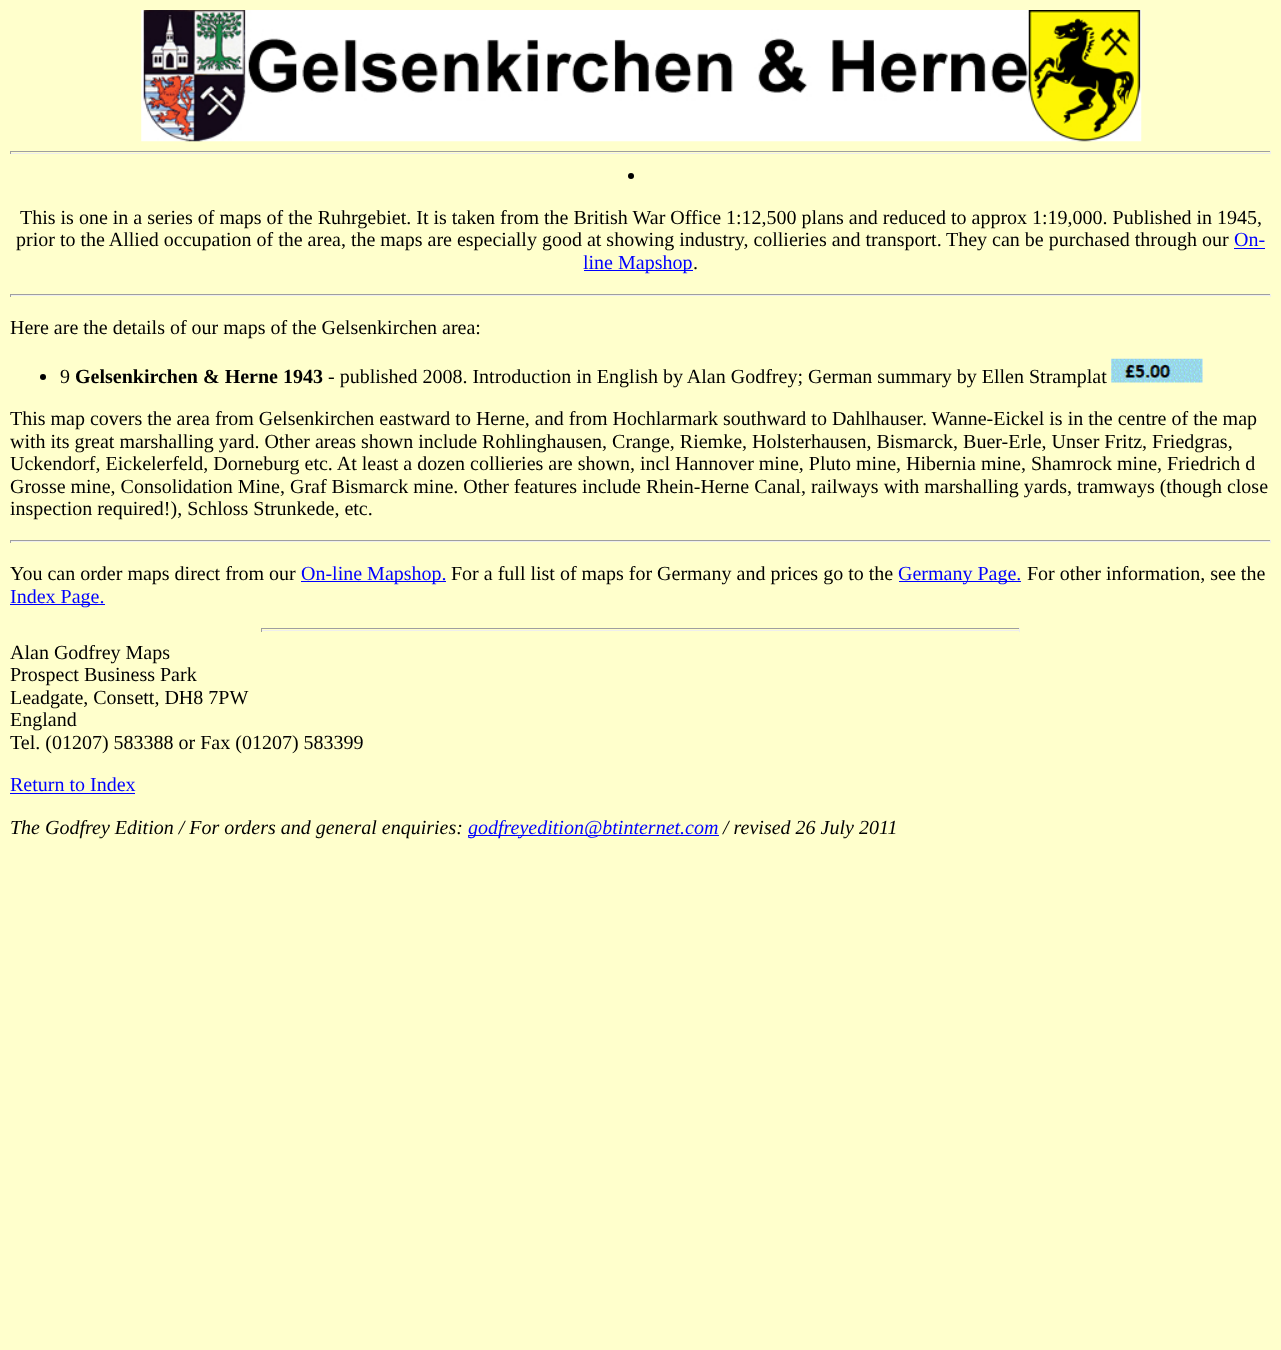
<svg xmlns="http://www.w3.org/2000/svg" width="1281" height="1350">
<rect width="100%" height="100%" fill="#ffc"/>
<image x="141" y="10" width="1001" height="132" href="media/1.png"/>
<rect x="10" y="151" width="1261" height="1" fill="#9f9f9f"/>
<rect x="1270" y="151" width="1" height="3" fill="#eee"/>
<rect x="10" y="153" width="1261" height="1" fill="#eee"/>
<rect x="10" y="151" width="1" height="3" fill="#9f9f9f"/>
<circle cx="631" cy="176" r="3" fill="#000"/>
<text x="20" y="224" style="font-family:Liberation Serif;font-size:20px;fill:#000">This is one in a series of maps of the Ruhrgebiet. It is taken from the British War Office 1:12,500 plans and reduced to approx 1:19,000. Published in 1945,</text>
<text x="16" y="246" style="font-family:Liberation Serif;font-size:20px;fill:#000">prior to the Allied occupation of the area, the maps are especially good at showing industry, collieries and transport.</text>
<text x="946" y="246" style="font-family:Liberation Serif;font-size:20px;fill:#000">They can be purchased through our</text>
<text x="1234" y="246" style="font-family:Liberation Serif;font-size:20px;fill:#00f">On-</text>
<rect x="1234" y="248" width="31" height="1" fill="#00f"/>
<rect x="584" y="270" width="109" height="1" fill="#00f"/>
<text x="583" y="269" style="font-family:Liberation Serif;font-size:20px;fill:#00f">line Mapshop</text>
<text x="693" y="269" style="font-family:Liberation Serif;font-size:20px;fill:#000">.</text>
<rect x="10" y="294" width="1261" height="1" fill="#9f9f9f"/>
<rect x="1270" y="294" width="1" height="3" fill="#eee"/>
<rect x="10" y="295" width="1261" height="1" fill="#eee"/>
<rect x="10" y="294" width="1" height="3" fill="#9f9f9f"/>
<text x="10" y="334" style="font-family:Liberation Serif;font-size:20px;fill:#000">Here are the details of our maps of the Gelsenkirchen area:</text>
<circle cx="43" cy="377" r="3" fill="#000"/>
<text x="60" y="383" style="font-family:Liberation Serif;font-size:20px;fill:#000">9</text>
<text x="75" y="383" style="font-family:Liberation Serif;font-size:20px;font-weight:bold;fill:#000">Gelsenkirchen &amp; Herne 1943</text>
<text x="328" y="383" style="font-family:Liberation Serif;font-size:20px;fill:#000">- published 2008. Introduction in English by Alan Godfrey; German summary by Ellen Stramplat</text>
<image x="1111" y="358" width="92" height="25" href="media/2.png"/>
<text x="10" y="425" style="font-family:Liberation Serif;font-size:20px;fill:#000">This map covers the area from Gelsenkirchen eastward to Herne, and from Hochlarmark southward to Dahlhauser. Wanne-Eickel is in the centre of the map</text>
<text x="10" y="448" style="font-family:Liberation Serif;font-size:20px;fill:#000">with its great marshalling yard. Other areas shown include Rohlinghausen, Crange, Riemke, Holsterhausen, Bismarck, Buer-Erle, Unser Fritz, Friedgras,</text>
<text x="10" y="470" style="font-family:Liberation Serif;font-size:20px;fill:#000">Uckendorf, Eickelerfeld, Dorneburg etc. At least a dozen collieries are shown, incl Hannover mine, Pluto mine, Hibernia mine, Shamrock mine, Friedrich d</text>
<text x="10" y="493" style="font-family:Liberation Serif;font-size:20px;fill:#000">Grosse mine, Consolidation Mine, Graf Bismarck mine. Other features include Rhein-Herne Canal, railways with marshalling yards, tramways (though close</text>
<text x="10" y="515" style="font-family:Liberation Serif;font-size:20px;fill:#000">inspection required!), Schloss Strunkede, etc.</text>
<rect x="10" y="540" width="1261" height="1" fill="#9f9f9f"/>
<rect x="1270" y="540" width="1" height="3" fill="#eee"/>
<rect x="10" y="541" width="1261" height="1" fill="#eee"/>
<rect x="10" y="540" width="1" height="3" fill="#9f9f9f"/>
<text x="10" y="580" style="font-family:Liberation Serif;font-size:20px;fill:#000">You can order maps direct from our</text>
<rect x="301" y="581" width="145" height="1" fill="#00f"/>
<text x="301" y="580" style="font-family:Liberation Serif;font-size:20px;fill:#00f">On-line Mapshop.</text>
<text x="451" y="580" style="font-family:Liberation Serif;font-size:20px;fill:#000">For a full list of maps for Germany and prices go to the</text>
<rect x="899" y="581" width="122" height="1" fill="#00f"/>
<text x="898" y="580" style="font-family:Liberation Serif;font-size:20px;fill:#00f">Germany Page.</text>
<text x="1027" y="580" style="font-family:Liberation Serif;font-size:20px;fill:#000">For other information, see the</text>
<rect x="10" y="604" width="95" height="1" fill="#00f"/>
<text x="10" y="603" style="font-family:Liberation Serif;font-size:20px;fill:#00f">Index Page.</text>
<rect x="261" y="628" width="759" height="1" fill="#9f9f9f"/>
<rect x="1019" y="628" width="1" height="4" fill="#eee"/>
<rect x="261" y="630" width="759" height="1" fill="#eee"/>
<rect x="261" y="628" width="1" height="4" fill="#9f9f9f"/>
<text x="10" y="659" style="font-family:Liberation Serif;font-size:20px;fill:#000">Alan Godfrey Maps</text>
<text x="10" y="681" style="font-family:Liberation Serif;font-size:20px;fill:#000">Prospect Business Park</text>
<text x="10" y="704" style="font-family:Liberation Serif;font-size:20px;fill:#000">Leadgate, Consett, DH8 7PW</text>
<text x="10" y="726" style="font-family:Liberation Serif;font-size:20px;fill:#000">England</text>
<text x="10" y="749" style="font-family:Liberation Serif;font-size:20px;fill:#000">Tel. (01207) 583388 or Fax (01207) 583399</text>
<text x="10" y="791" style="font-family:Liberation Serif;font-size:20px;fill:#00f">Return to Index</text>
<rect x="10" y="793" width="125" height="1" fill="#00f"/>
<text x="10" y="834" style="font-family:Liberation Serif;font-size:20px;font-style:italic;fill:#000">The Godfrey Edition / For orders and general enquiries:</text>
<rect x="468" y="835" width="251" height="1" fill="#00f"/>
<text x="468" y="834" style="font-family:Liberation Serif;font-size:20px;font-style:italic;fill:#00f">godfreyedition@btinternet.com</text>
<text x="723" y="834" style="font-family:Liberation Serif;font-size:20px;font-style:italic;fill:#000">/ revised 26 July 2011</text>
</svg>
